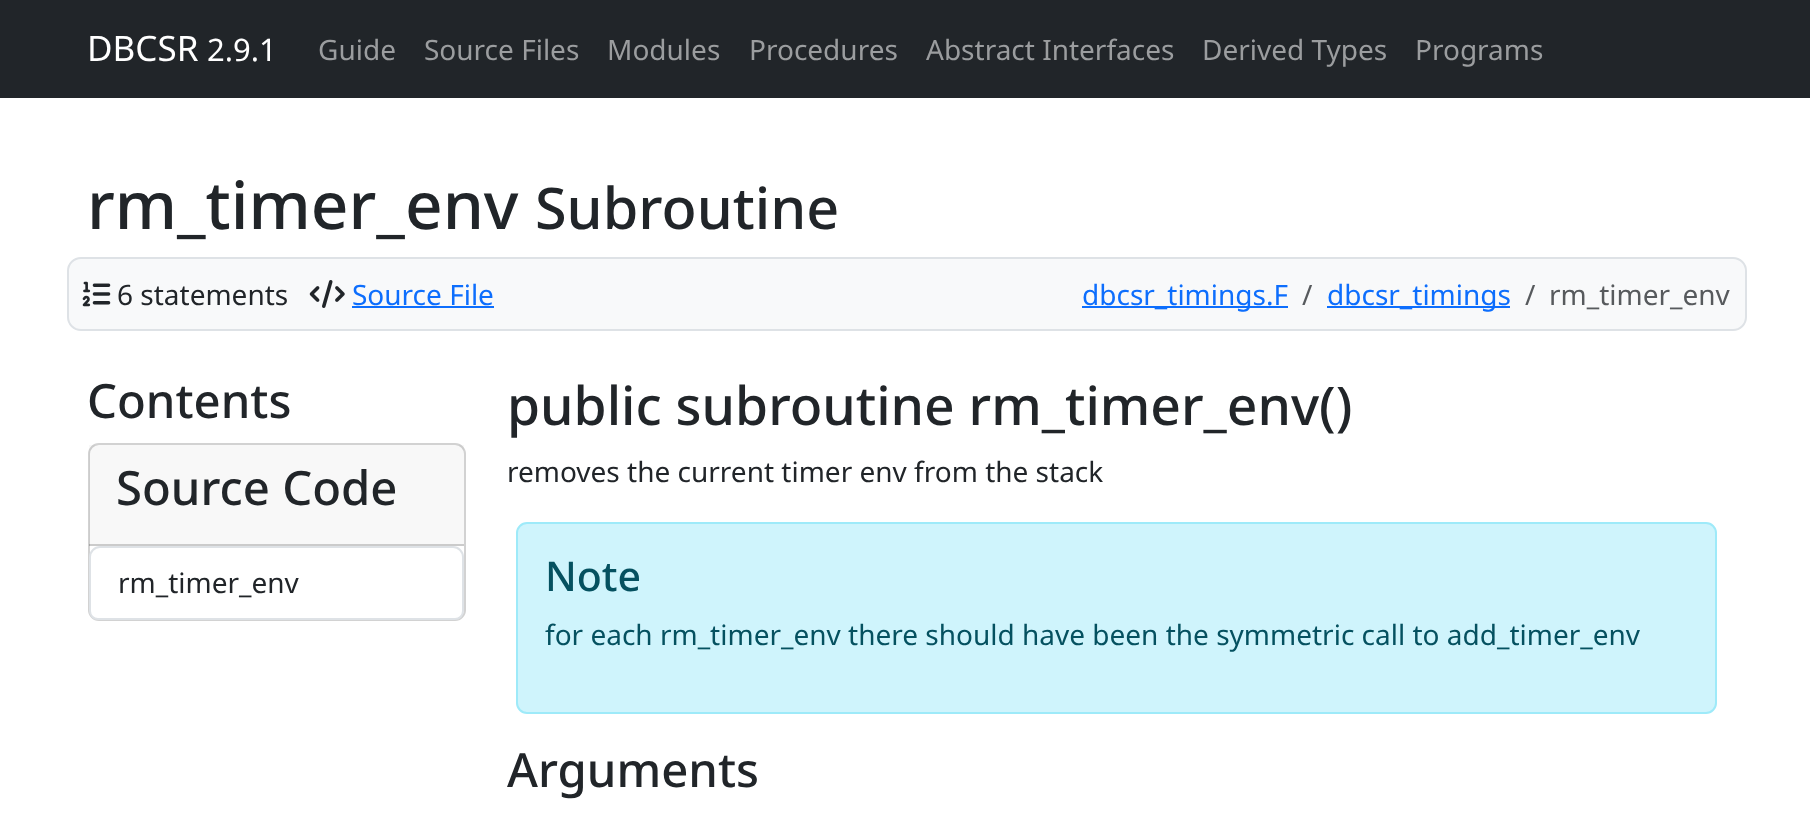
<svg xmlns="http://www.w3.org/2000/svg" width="1810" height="819">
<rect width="100%" height="100%" fill="#fff"/>
<rect width="1810" height="98" fill="#212529"/>
<text x="87" y="61" style="font-family:Noto Sans;font-size:35px;fill:#fff">DBCSR</text>
<text x="207" y="61" style="font-family:Noto Sans;font-size:31px;fill:#fff">2.9.1</text>
<text x="318" y="60" style="font-family:Noto Sans;font-size:28px;fill:#9b9d9f">Guide</text>
<text x="424" y="60" style="font-family:Noto Sans;font-size:28px;fill:#9b9d9f">Source Files</text>
<text x="607" y="60" style="font-family:Noto Sans;font-size:28px;fill:#9b9d9f">Modules</text>
<text x="749" y="60" style="font-family:Noto Sans;font-size:28px;fill:#9b9d9f">Procedures</text>
<text x="926" y="60" style="font-family:Noto Sans;font-size:28px;fill:#9b9d9f">Abstract Interfaces</text>
<text x="1202" y="60" style="font-family:Noto Sans;font-size:28px;fill:#9b9d9f">Derived Types</text>
<text x="1415" y="60" style="font-family:Noto Sans;font-size:28px;fill:#9b9d9f">Programs</text>
<text x="87" y="229" style="font-family:Noto Sans;font-size:65.75px;font-weight:500;fill:#212529">rm_timer_env</text>
<text x="535" y="229" style="font-family:Noto Sans;font-size:57.5px;font-weight:500;fill:#212529">Subroutine</text>
<rect x="68" y="258" width="1678" height="72" rx="13" fill="#f8f9fa" stroke="#dee2e6" stroke-width="2"/>
<image x="82" y="281" width="29" height="26" href="media/1.png"/>
<text x="117" y="305" style="font-family:Noto Sans;font-size:28px;fill:#212529">6 statements</text>
<image x="309" y="280" width="36" height="28" href="media/2.png"/>
<text x="352" y="305" style="font-family:Noto Sans;font-size:28px;fill:#0d6efd">Source File</text>
<rect x="352" y="306" width="142" height="2" fill="#0d6efd"/>
<rect x="1082" y="306" width="206" height="2" fill="#0d6efd"/>
<text x="1082" y="305" style="font-family:Noto Sans;font-size:28px;fill:#0d6efd">dbcsr_timings.F</text>
<text x="1302" y="305" style="font-family:Noto Sans;font-size:28px;fill:#575a5d">/</text>
<rect x="1327" y="306" width="183" height="2" fill="#0d6efd"/>
<text x="1327" y="305" style="font-family:Noto Sans;font-size:28px;fill:#0d6efd">dbcsr_timings</text>
<text x="1525" y="305" style="font-family:Noto Sans;font-size:28px;fill:#575a5d">/</text>
<text x="1549" y="305" style="font-family:Noto Sans;font-size:28px;fill:#575a5d">rm_timer_env</text>
<text x="87" y="418" style="font-family:Noto Sans;font-size:47.25px;font-weight:500;fill:#212529">Contents</text>
<rect x="89" y="444" width="376" height="176" rx="10" fill="none" stroke="#d2d2d2" stroke-width="2"/>
<rect x="89" y="445" width="375" height="101" fill="#21252908"/>
<rect x="89" y="544" width="375" height="2" fill="#0000002e"/>
<text x="116" y="505" style="font-family:Noto Sans;font-size:47.25px;font-weight:500;fill:#212529">Source Code</text>
<path d="M100 547h353c5.5 0 10 4.5 10 10v54c0 4.5-3.5 8-8 8h-357c-4.5 0-8-3.5-8-8v-54c0-5.5 4.5-10 10-10z" fill="#fff" stroke="#dee2e6" stroke-width="2"/>
<text x="118" y="593" style="font-family:Noto Sans;font-size:28px;fill:#212529">rm_timer_env</text>
<text x="507" y="425" style="font-family:Noto Sans;font-size:53.4px;font-weight:500;fill:#212529">public subroutine rm_timer_env()</text>
<text x="507" y="482" style="font-family:Noto Sans;font-size:28px;fill:#212529">removes the current timer env from the stack</text>
<rect x="517" y="523" width="1199" height="190" rx="10" fill="#cff4fc" stroke="#9eeaf9" stroke-width="2"/>
<text x="545" y="591" style="font-family:Noto Sans;font-size:41px;font-weight:500;fill:#055160">Note</text>
<text x="545" y="645" style="font-family:Noto Sans;font-size:28px;fill:#055160">for each rm_timer_env there should have been the symmetric call to add_timer_env</text>
<text x="507" y="787" style="font-family:Noto Sans;font-size:47.25px;font-weight:500;fill:#212529">Arguments</text>
</svg>
